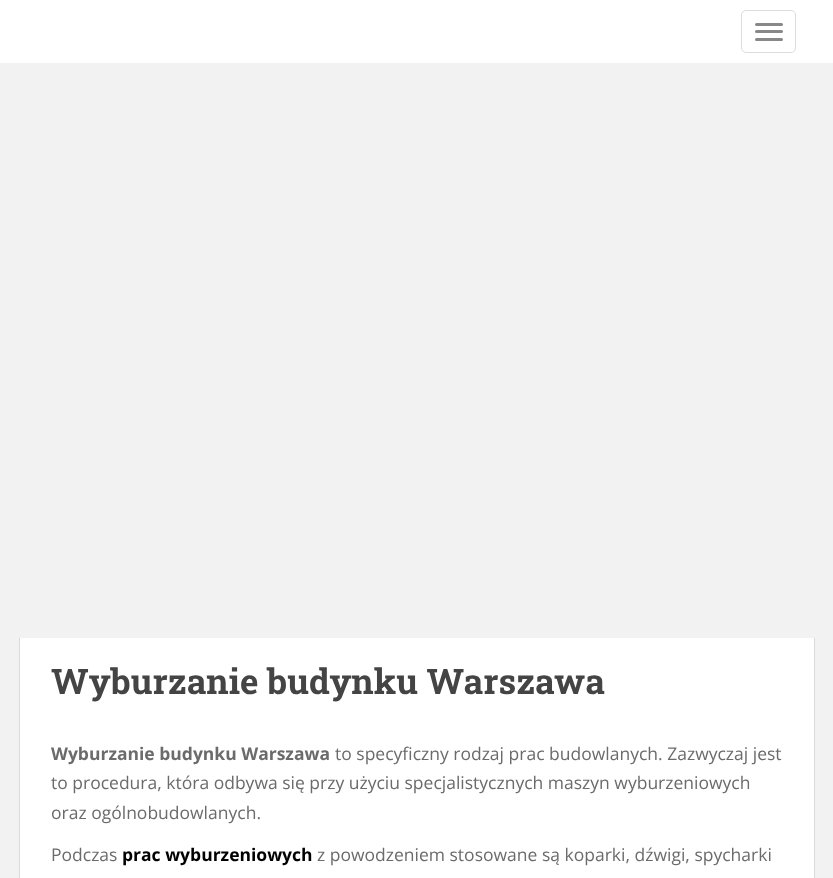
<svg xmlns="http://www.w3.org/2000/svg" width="833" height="878">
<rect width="100%" height="100%" fill="#f2f2f2"/>
<rect width="833" height="63" fill="#fff"/>
<rect x="741.5" y="10.5" width="54" height="42" rx="4.5" fill="none" stroke="#ddd"/>
<rect x="755" y="23" width="28" height="3" rx="1.5" fill="#888"/>
<rect x="755" y="30" width="28" height="3" rx="1.5" fill="#888"/>
<rect x="755" y="38" width="28" height="3" rx="1.5" fill="#888"/>
<rect x="20" y="638" width="794" height="240" fill="#fff"/>
<rect x="814" y="638" width="1" height="240" fill="#dadada"/>
<rect x="19" y="638" width="1" height="240" fill="#dadada"/>
<text x="51" y="694" style="font-family:Roboto Slab;font-size:35px;font-weight:bold;fill:#444">Wyburzanie budynku Warszawa</text>
<text x="51" y="760" style="font-family:Open Sans;font-size:17.5px;font-weight:bold;fill:#6b6b6b">Wyburzanie budynku Warszawa</text>
<text x="335" y="760" style="font-family:Open Sans;font-size:17.5px;fill:#6b6b6b">to specyficzny rodzaj prac budowlanych. Zazwyczaj jest</text>
<text x="51" y="789" style="font-family:Open Sans;font-size:17.5px;fill:#6b6b6b">to procedura, która odbywa się przy użyciu specjalistycznych maszyn wyburzeniowych</text>
<text x="51" y="819" style="font-family:Open Sans;font-size:17.5px;fill:#6b6b6b">oraz ogólnobudowlanych.</text>
<text x="51" y="861" style="font-family:Open Sans;font-size:17.5px;fill:#6b6b6b">Podczas</text>
<text x="122" y="861" style="font-family:Open Sans;font-size:17.5px;font-weight:bold;fill:#000">prac wyburzeniowych</text>
<text x="317" y="861" style="font-family:Open Sans;font-size:17.5px;fill:#6b6b6b">z powodzeniem stosowane są koparki, dźwigi, spycharki</text>
</svg>
